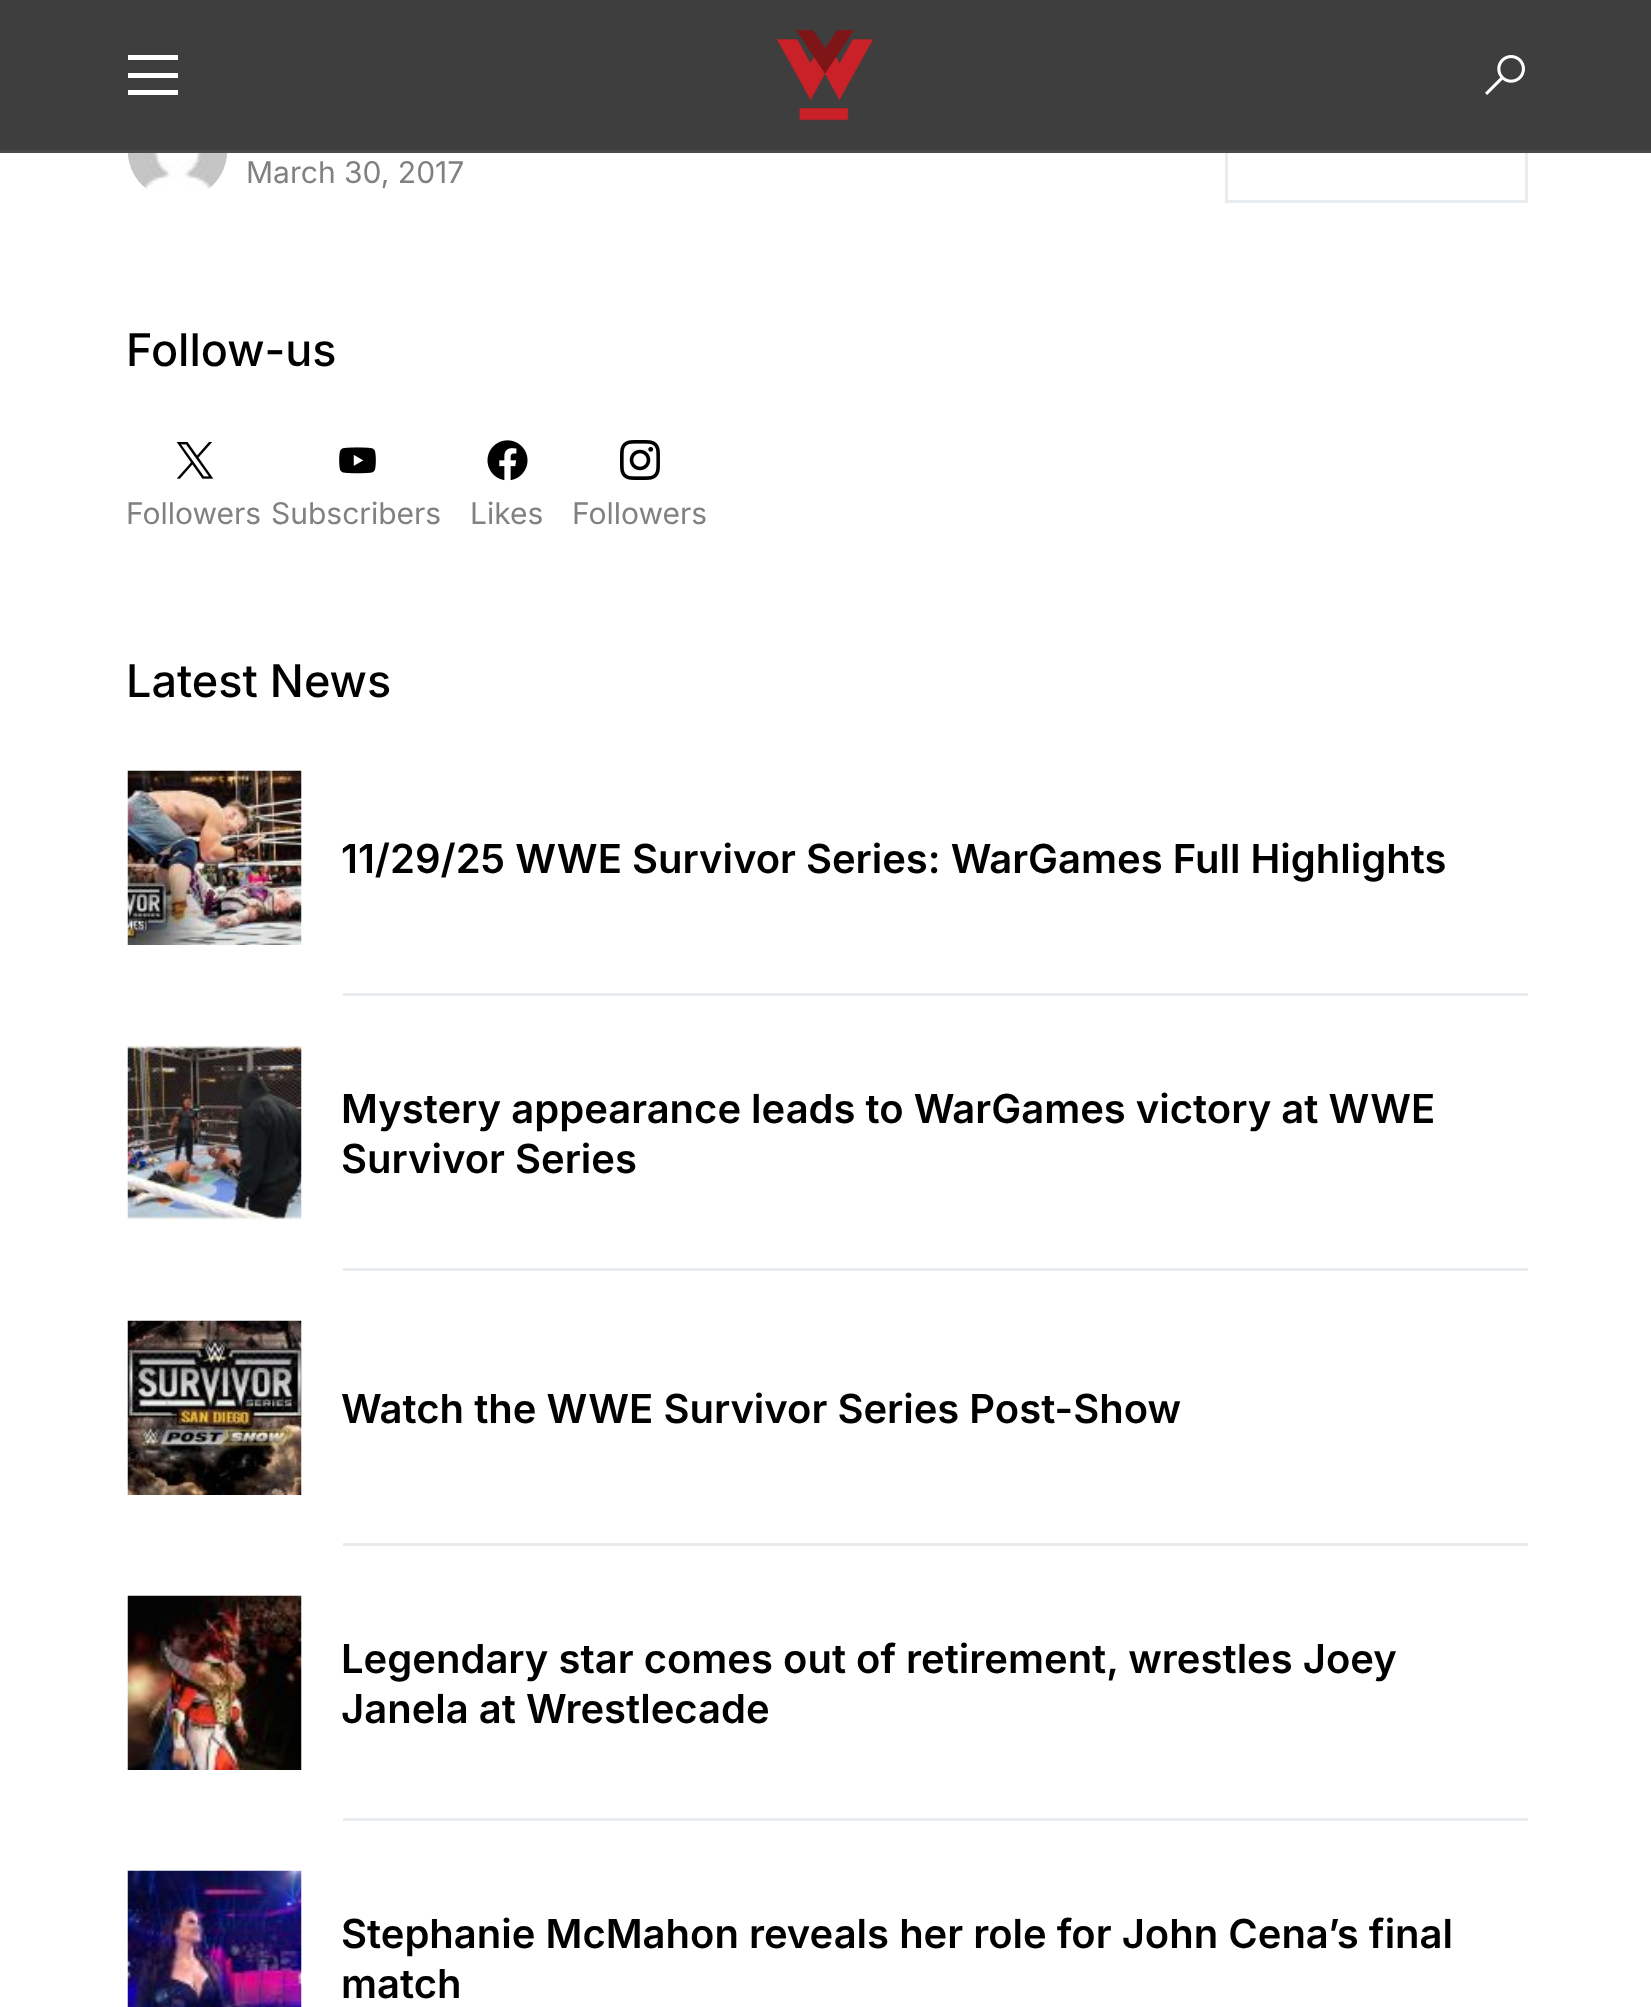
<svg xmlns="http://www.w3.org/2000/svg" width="1651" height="2007">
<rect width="100%" height="100%" fill="#fff"/>
<rect x="1226.5" y="99.5" width="300" height="102" fill="none" stroke="#e9ecef" stroke-width="3"/>
<rect width="1651" height="150" fill="#3e3e3e"/>
<rect y="150" width="1651" height="3" fill="#49494b"/>
<rect x="128" y="55" width="50" height="5" fill="#fff"/>
<rect x="128" y="73" width="50" height="5" fill="#fff"/>
<rect x="128" y="90" width="50" height="5" fill="#fff"/>
<image x="776" y="29" width="98" height="92" href="media/1.png"/>
<image x="1485" y="55" width="40" height="40" href="media/2.png"/>
<image x="127" y="153" width="101" height="37" href="media/3.png"/>
<text x="246" y="183" style="font-family:Inter;font-size:30px;fill:#818181">March 30, 2017</text>
<text x="126" y="366" style="font-family:Inter;font-size:45px;font-weight:500;fill:#000">Follow-us</text>
<image x="176" y="442" width="38" height="37" href="media/4.png"/>
<text x="126" y="524" style="font-family:Inter;font-size:30px;fill:#818181">Followers</text>
<image x="339" y="447" width="37" height="27" href="media/5.png"/>
<text x="271" y="524" style="font-family:Inter;font-size:30px;fill:#818181">Subscribers</text>
<image x="487" y="440" width="41" height="41" href="media/6.png"/>
<text x="470" y="524" style="font-family:Inter;font-size:30px;fill:#818181">Likes</text>
<image x="620" y="440" width="40" height="40" href="media/7.png"/>
<text x="572" y="524" style="font-family:Inter;font-size:30px;fill:#818181">Followers</text>
<text x="126" y="697" style="font-family:Inter;font-size:45px;font-weight:500;fill:#000">Latest News</text>
<image x="127" y="770" width="175" height="175" href="media/8.png"/>
<text x="341" y="873" style="font-family:Inter;font-size:40px;font-weight:600;fill:#000">11/29/25 WWE Survivor Series: WarGames Full Highlights</text>
<rect x="343" y="993" width="1185" height="3" fill="#e9ecef"/>
<image x="127" y="1045" width="175" height="175" href="media/9.png"/>
<text x="341" y="1123" style="font-family:Inter;font-size:40px;font-weight:600;fill:#000">Mystery appearance leads to WarGames victory at WWE</text>
<text x="341" y="1173" style="font-family:Inter;font-size:40px;font-weight:600;fill:#000">Survivor Series</text>
<rect x="343" y="1268" width="1185" height="3" fill="#e9ecef"/>
<image x="127" y="1320" width="175" height="175" href="media/10.png"/>
<text x="341" y="1423" style="font-family:Inter;font-size:40px;font-weight:600;fill:#000">Watch the WWE Survivor Series Post-Show</text>
<rect x="343" y="1543" width="1185" height="3" fill="#e9ecef"/>
<image x="127" y="1595" width="175" height="175" href="media/11.png"/>
<text x="341" y="1673" style="font-family:Inter;font-size:40px;font-weight:600;fill:#000">Legendary star comes out of retirement, wrestles Joey</text>
<text x="341" y="1723" style="font-family:Inter;font-size:40px;font-weight:600;fill:#000">Janela at Wrestlecade</text>
<rect x="343" y="1818" width="1185" height="3" fill="#e9ecef"/>
<image x="127" y="1870" width="175" height="137" href="media/12.png"/>
<text x="341" y="1948" style="font-family:Inter;font-size:40px;font-weight:600;fill:#000">Stephanie McMahon reveals her role for John Cena’s final</text>
<text x="341" y="1998" style="font-family:Inter;font-size:40px;font-weight:600;fill:#000">match</text>
</svg>
